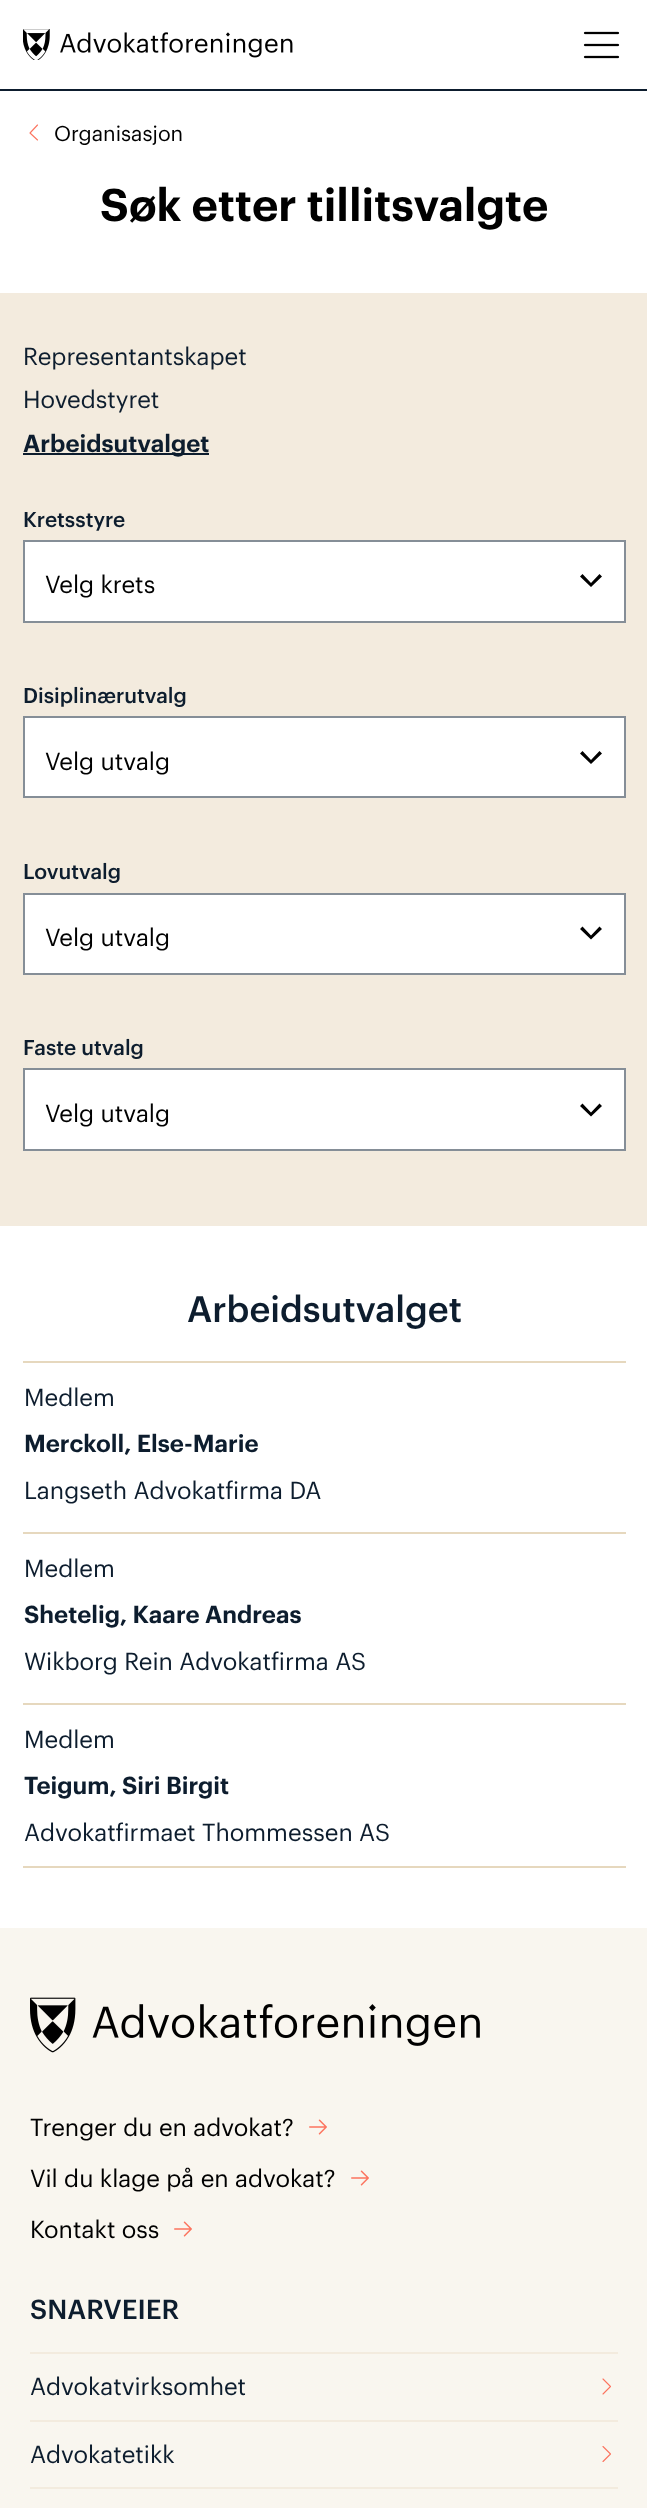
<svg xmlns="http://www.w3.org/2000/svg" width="647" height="2508">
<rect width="100%" height="100%" fill="#fff"/>
<rect y="89" width="647" height="2" fill="#0d1d2e"/>
<image x="23" y="29" width="270" height="31" href="media/1.png"/>
<image x="583" y="31" width="37" height="28" href="media/2.png"/>
<path d="M37.5 140l-7.5-7l7.5-8" fill="none" stroke="#fc745f" stroke-width="1.1" stroke-linecap="round" stroke-linejoin="round"/>
<text x="54" y="141" style="font-family:Graphik;font-size:21px;fill:#000">Organisasjon</text>
<text x="100" y="221" style="font-family:Graphik;font-size:45px;font-weight:600;fill:#000">Søk etter tillitsvalgte</text>
<rect y="293" width="647" height="933" fill="#f3ebde"/>
<text x="23" y="365" style="font-family:Graphik;font-size:24px;fill:#0d1d2e">Representantskapet</text>
<text x="23" y="408" style="font-family:Graphik;font-size:24px;fill:#0d1d2e">Hovedstyret</text>
<rect x="23" y="453" width="186" height="2" fill="#0d1d2e"/>
<text x="23" y="452" style="font-family:Graphik;font-size:24px;font-weight:600;fill:#0d1d2e">Arbeidsutvalget</text>
<text x="23" y="527" style="font-family:Graphik;font-size:21px;font-weight:500;fill:#0d1d2e">Kretsstyre</text>
<rect x="25" y="542" width="599" height="79" fill="#fff"/>
<path d="M580 576.5l2.5-2.5l8.5 9l8.5-9l2.5 2.5l-11 10.5z" fill="#000" fill-rule="evenodd"/>
<rect x="24" y="541" width="601" height="81" fill="none" stroke="#858e97" stroke-width="2"/>
<text x="45" y="593" style="font-family:Graphik;font-size:24px;fill:#000">Velg krets</text>
<text x="23" y="703" style="font-family:Graphik;font-size:21px;font-weight:500;fill:#0d1d2e">Disiplinærutvalg</text>
<rect x="25" y="718" width="599" height="78" fill="#fff"/>
<path d="M580 753.5l2.5-2.5l8.5 9l8.5-9l2.5 2.5l-11 10.5z" fill="#000" fill-rule="evenodd"/>
<rect x="24" y="717" width="601" height="80" fill="none" stroke="#858e97" stroke-width="2"/>
<text x="45" y="770" style="font-family:Graphik;font-size:24px;fill:#000">Velg utvalg</text>
<text x="23" y="879" style="font-family:Graphik;font-size:21px;font-weight:500;fill:#0d1d2e">Lovutvalg</text>
<rect x="25" y="895" width="599" height="78" fill="#fff"/>
<path d="M580 929l2.5-2.5l8.5 9l8.5-9l2.5 2.5l-11 10.5z" fill="#000" fill-rule="evenodd"/>
<rect x="24" y="894" width="601" height="80" fill="none" stroke="#858e97" stroke-width="2"/>
<text x="45" y="946" style="font-family:Graphik;font-size:24px;fill:#000">Velg utvalg</text>
<text x="23" y="1055" style="font-family:Graphik;font-size:21px;font-weight:500;fill:#0d1d2e">Faste utvalg</text>
<rect x="25" y="1070" width="599" height="79" fill="#fff"/>
<path d="M580 1106l2.5-2.5l8.5 9l8.5-9l2.5 2.5l-11 10.5z" fill="#000" fill-rule="evenodd"/>
<rect x="24" y="1069" width="601" height="81" fill="none" stroke="#858e97" stroke-width="2"/>
<text x="45" y="1122" style="font-family:Graphik;font-size:24px;fill:#000">Velg utvalg</text>
<text x="187" y="1322" style="font-family:Graphik;font-size:36px;font-weight:500;fill:#0d1d2e">Arbeidsutvalget</text>
<rect x="23" y="1361" width="603" height="2" fill="#e6d8be"/>
<text x="24" y="1406" style="font-family:Graphik;font-size:24px;fill:#0d1d2e">Medlem</text>
<text x="24" y="1452" style="font-family:Graphik;font-size:24px;font-weight:600;fill:#0d1d2e">Merckoll, Else-Marie</text>
<text x="24" y="1499" style="font-family:Graphik;font-size:24px;fill:#0d1d2e">Langseth Advokatfirma DA</text>
<rect x="23" y="1532" width="603" height="2" fill="#e6d8be"/>
<text x="24" y="1577" style="font-family:Graphik;font-size:24px;fill:#0d1d2e">Medlem</text>
<text x="24" y="1623" style="font-family:Graphik;font-size:24px;font-weight:600;fill:#0d1d2e">Shetelig, Kaare Andreas</text>
<text x="24" y="1670" style="font-family:Graphik;font-size:24px;fill:#0d1d2e">Wikborg Rein Advokatfirma AS</text>
<rect x="23" y="1703" width="603" height="2" fill="#e6d8be"/>
<rect x="23" y="1866" width="603" height="2" fill="#e6d8be"/>
<text x="24" y="1748" style="font-family:Graphik;font-size:24px;fill:#0d1d2e">Medlem</text>
<text x="24" y="1794" style="font-family:Graphik;font-size:24px;font-weight:600;fill:#0d1d2e">Teigum, Siri Birgit</text>
<text x="24" y="1841" style="font-family:Graphik;font-size:24px;fill:#0d1d2e">Advokatfirmaet Thommessen AS</text>
<rect y="1928" width="647" height="580" fill="#f9f6ef"/>
<image x="30" y="1997" width="450" height="56" href="media/3.png"/>
<text x="30" y="2136" style="font-family:Graphik;font-size:24px;fill:#000">Trenger du en advokat?</text>
<image x="309" y="2119" width="18" height="16" href="media/4.png"/>
<text x="30" y="2187" style="font-family:Graphik;font-size:24px;fill:#000">Vil du klage på en advokat?</text>
<image x="351" y="2170" width="18" height="16" href="media/4.png"/>
<text x="30" y="2238" style="font-family:Graphik;font-size:24px;fill:#000">Kontakt oss</text>
<image x="174" y="2221" width="18" height="16" href="media/4.png"/>
<text x="30" y="2319" style="font-family:Graphik;font-size:27px;font-weight:500;fill:#0d1d2e">SNARVEIER</text>
<rect x="30" y="2352" width="588" height="2" fill="#f3ebde"/>
<rect x="30" y="2420" width="588" height="2" fill="#f3ebde"/>
<text x="30" y="2395" style="font-family:Graphik;font-size:24px;fill:#0d1d2e">Advokatvirksomhet</text>
<image x="602" y="2378" width="9" height="17" href="media/5.png"/>
<rect x="30" y="2487" width="588" height="2" fill="#f3ebde"/>
<text x="30" y="2463" style="font-family:Graphik;font-size:24px;fill:#0d1d2e">Advokatetikk</text>
<image x="602" y="2446" width="9" height="16" href="media/6.png"/>
</svg>
